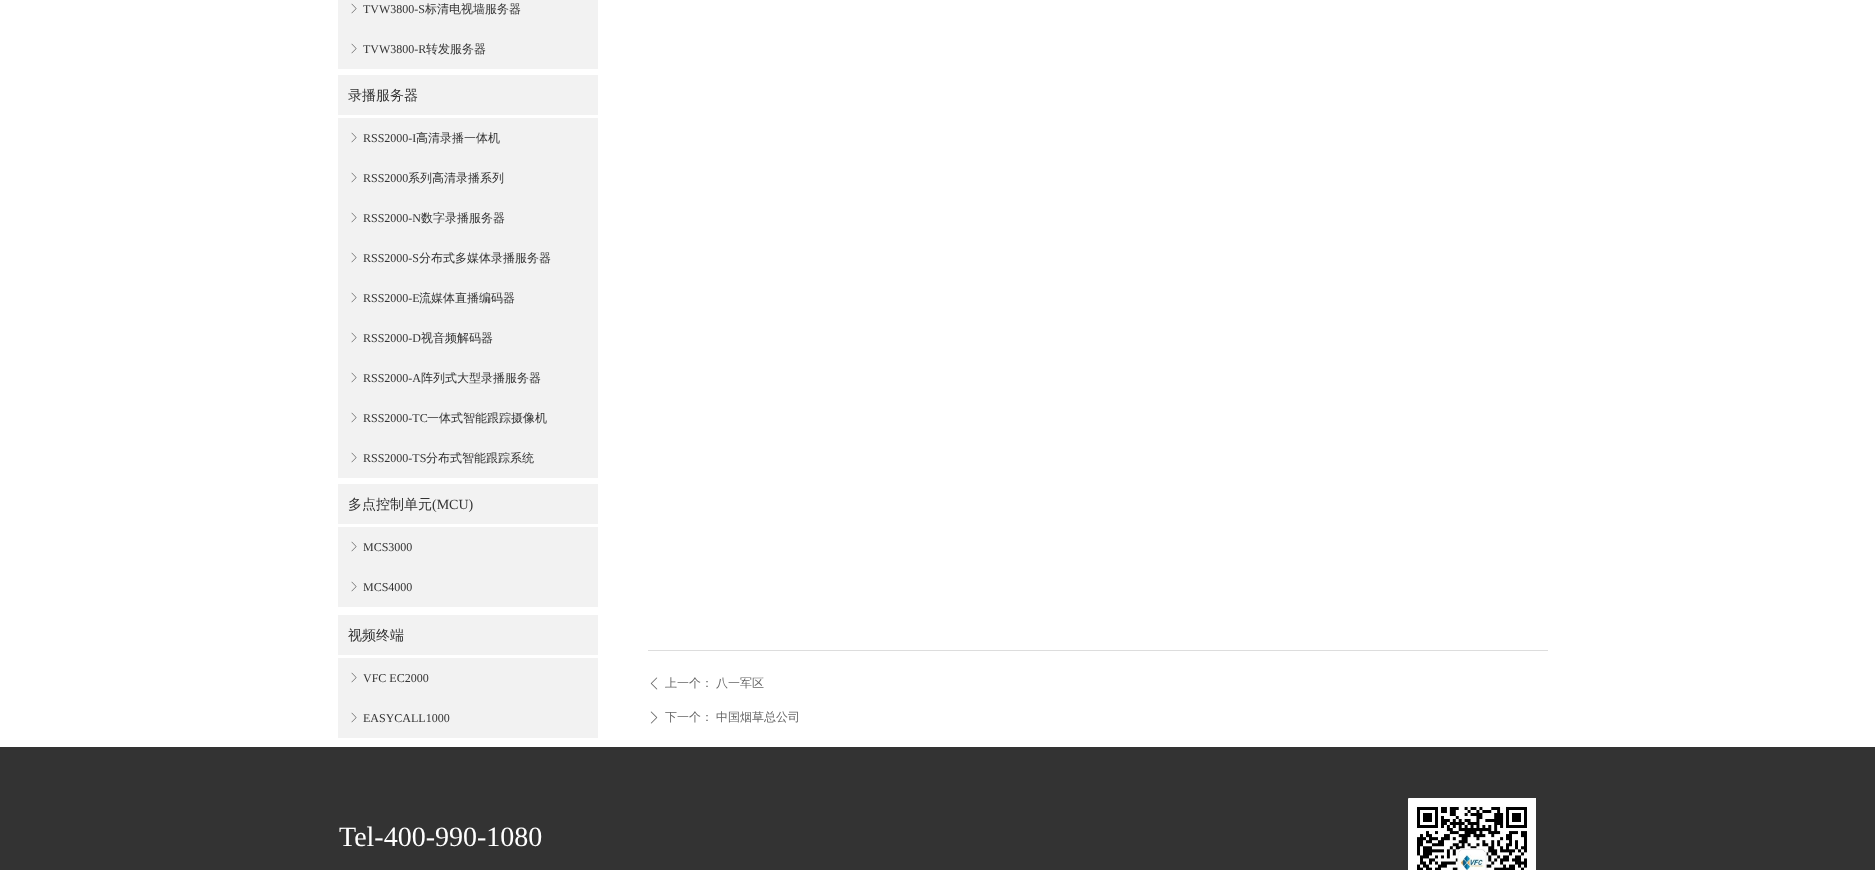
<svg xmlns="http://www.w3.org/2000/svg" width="1875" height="870">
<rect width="100%" height="100%" fill="#fff"/>
<rect x="338" width="260" height="69" fill="#f2f2f2"/>
<image x="351" y="3" width="6" height="11" href="media/1.png"/>
<text x="363" y="13" style="font-family:Liberation Serif;font-size:12px;fill:#333">TVW3800-S</text>
<text x="425" y="13" style="font-family:WenQuanYi Zen Hei;font-size:12px;font-weight:500;fill:#333">标清电视墙服务器</text>
<image x="351" y="43" width="6" height="11" href="media/1.png"/>
<text x="363" y="53" style="font-family:Liberation Serif;font-size:12px;fill:#333">TVW3800-R</text>
<text x="426" y="53" style="font-family:WenQuanYi Zen Hei;font-size:12px;font-weight:500;fill:#333">转发服务器</text>
<rect x="338" y="75" width="260" height="40" fill="#f2f2f2"/>
<text x="348" y="100" style="font-family:WenQuanYi Zen Hei;font-size:14px;font-weight:500;fill:#333">录播服务器</text>
<rect x="338" y="118" width="260" height="360" fill="#f2f2f2"/>
<image x="351" y="132" width="6" height="11" href="media/1.png"/>
<text x="363" y="142" style="font-family:Liberation Serif;font-size:12px;fill:#333">RSS2000-I</text>
<text x="416" y="142" style="font-family:WenQuanYi Zen Hei;font-size:12px;font-weight:500;fill:#333">高清录播一体机</text>
<image x="351" y="172" width="6" height="11" href="media/1.png"/>
<text x="363" y="182" style="font-family:Liberation Serif;font-size:12px;fill:#333">RSS2000</text>
<text x="408" y="182" style="font-family:WenQuanYi Zen Hei;font-size:12px;font-weight:500;fill:#333">系列高清录播系列</text>
<image x="351" y="212" width="6" height="11" href="media/1.png"/>
<text x="363" y="222" style="font-family:Liberation Serif;font-size:12px;fill:#333">RSS2000-N</text>
<text x="421" y="222" style="font-family:WenQuanYi Zen Hei;font-size:12px;font-weight:500;fill:#333">数字录播服务器</text>
<image x="351" y="252" width="6" height="11" href="media/1.png"/>
<text x="363" y="262" style="font-family:Liberation Serif;font-size:12px;fill:#333">RSS2000-S</text>
<text x="419" y="262" style="font-family:WenQuanYi Zen Hei;font-size:12px;font-weight:500;fill:#333">分布式多媒体录播服务器</text>
<image x="351" y="292" width="6" height="11" href="media/1.png"/>
<text x="363" y="302" style="font-family:Liberation Serif;font-size:12px;fill:#333">RSS2000-E</text>
<text x="419" y="302" style="font-family:WenQuanYi Zen Hei;font-size:12px;font-weight:500;fill:#333">流媒体直播编码器</text>
<image x="351" y="332" width="6" height="11" href="media/1.png"/>
<text x="363" y="342" style="font-family:Liberation Serif;font-size:12px;fill:#333">RSS2000-D</text>
<text x="421" y="342" style="font-family:WenQuanYi Zen Hei;font-size:12px;font-weight:500;fill:#333">视音频解码器</text>
<image x="351" y="372" width="6" height="11" href="media/1.png"/>
<text x="363" y="382" style="font-family:Liberation Serif;font-size:12px;fill:#333">RSS2000-A</text>
<text x="421" y="382" style="font-family:WenQuanYi Zen Hei;font-size:12px;font-weight:500;fill:#333">阵列式大型录播服务器</text>
<image x="351" y="412" width="6" height="11" href="media/1.png"/>
<text x="363" y="422" style="font-family:Liberation Serif;font-size:12px;fill:#333">RSS2000-TC</text>
<text x="427" y="422" style="font-family:WenQuanYi Zen Hei;font-size:12px;font-weight:500;fill:#333">一体式智能跟踪摄像机</text>
<image x="351" y="452" width="6" height="11" href="media/1.png"/>
<text x="363" y="462" style="font-family:Liberation Serif;font-size:12px;fill:#333">RSS2000-TS</text>
<text x="426" y="462" style="font-family:WenQuanYi Zen Hei;font-size:12px;font-weight:500;fill:#333">分布式智能跟踪系统</text>
<rect x="338" y="484" width="260" height="40" fill="#f2f2f2"/>
<text x="348" y="509" style="font-family:WenQuanYi Zen Hei;font-size:14px;font-weight:500;fill:#333">多点控制单元</text>
<text x="432" y="509" style="font-family:Liberation Serif;font-size:14px;fill:#333">(MCU)</text>
<rect x="338" y="527" width="260" height="80" fill="#f2f2f2"/>
<image x="351" y="541" width="6" height="11" href="media/1.png"/>
<text x="363" y="551" style="font-family:Liberation Serif;font-size:12px;fill:#333">MCS3000</text>
<image x="351" y="581" width="6" height="11" href="media/1.png"/>
<text x="363" y="591" style="font-family:Liberation Serif;font-size:12px;fill:#333">MCS4000</text>
<rect x="338" y="615" width="260" height="40" fill="#f2f2f2"/>
<text x="348" y="640" style="font-family:WenQuanYi Zen Hei;font-size:14px;font-weight:500;fill:#333">视频终端</text>
<rect x="338" y="658" width="260" height="80" fill="#f2f2f2"/>
<image x="351" y="672" width="6" height="11" href="media/1.png"/>
<text x="363" y="682" style="font-family:Liberation Serif;font-size:12px;fill:#333">VFC EC2000</text>
<image x="351" y="712" width="6" height="11" href="media/1.png"/>
<text x="363" y="722" style="font-family:Liberation Serif;font-size:12px;fill:#333">EASYCALL1000</text>
<rect x="648" y="650" width="900" height="1" fill="#ddd"/>
<image x="650" y="677" width="8" height="13" href="media/2.png"/>
<text x="665" y="687" style="font-family:WenQuanYi Zen Hei;font-size:12px;font-weight:500;fill:#666">上一个：</text>
<text x="716" y="687" style="font-family:WenQuanYi Zen Hei;font-size:12px;font-weight:500;fill:#666">八一军区</text>
<image x="650" y="711" width="8" height="13" href="media/3.png"/>
<text x="665" y="721" style="font-family:WenQuanYi Zen Hei;font-size:12px;font-weight:500;fill:#666">下一个：</text>
<text x="716" y="721" style="font-family:WenQuanYi Zen Hei;font-size:12px;font-weight:500;fill:#666">中国烟草总公司</text>
<rect y="747" width="1875" height="123" fill="#333"/>
<text x="339" y="846" style="font-family:Liberation Serif;font-size:28px;fill:#fff">Tel-400-990-1080</text>
<image x="1408" y="798" width="128" height="72" href="media/4.png"/>
</svg>
